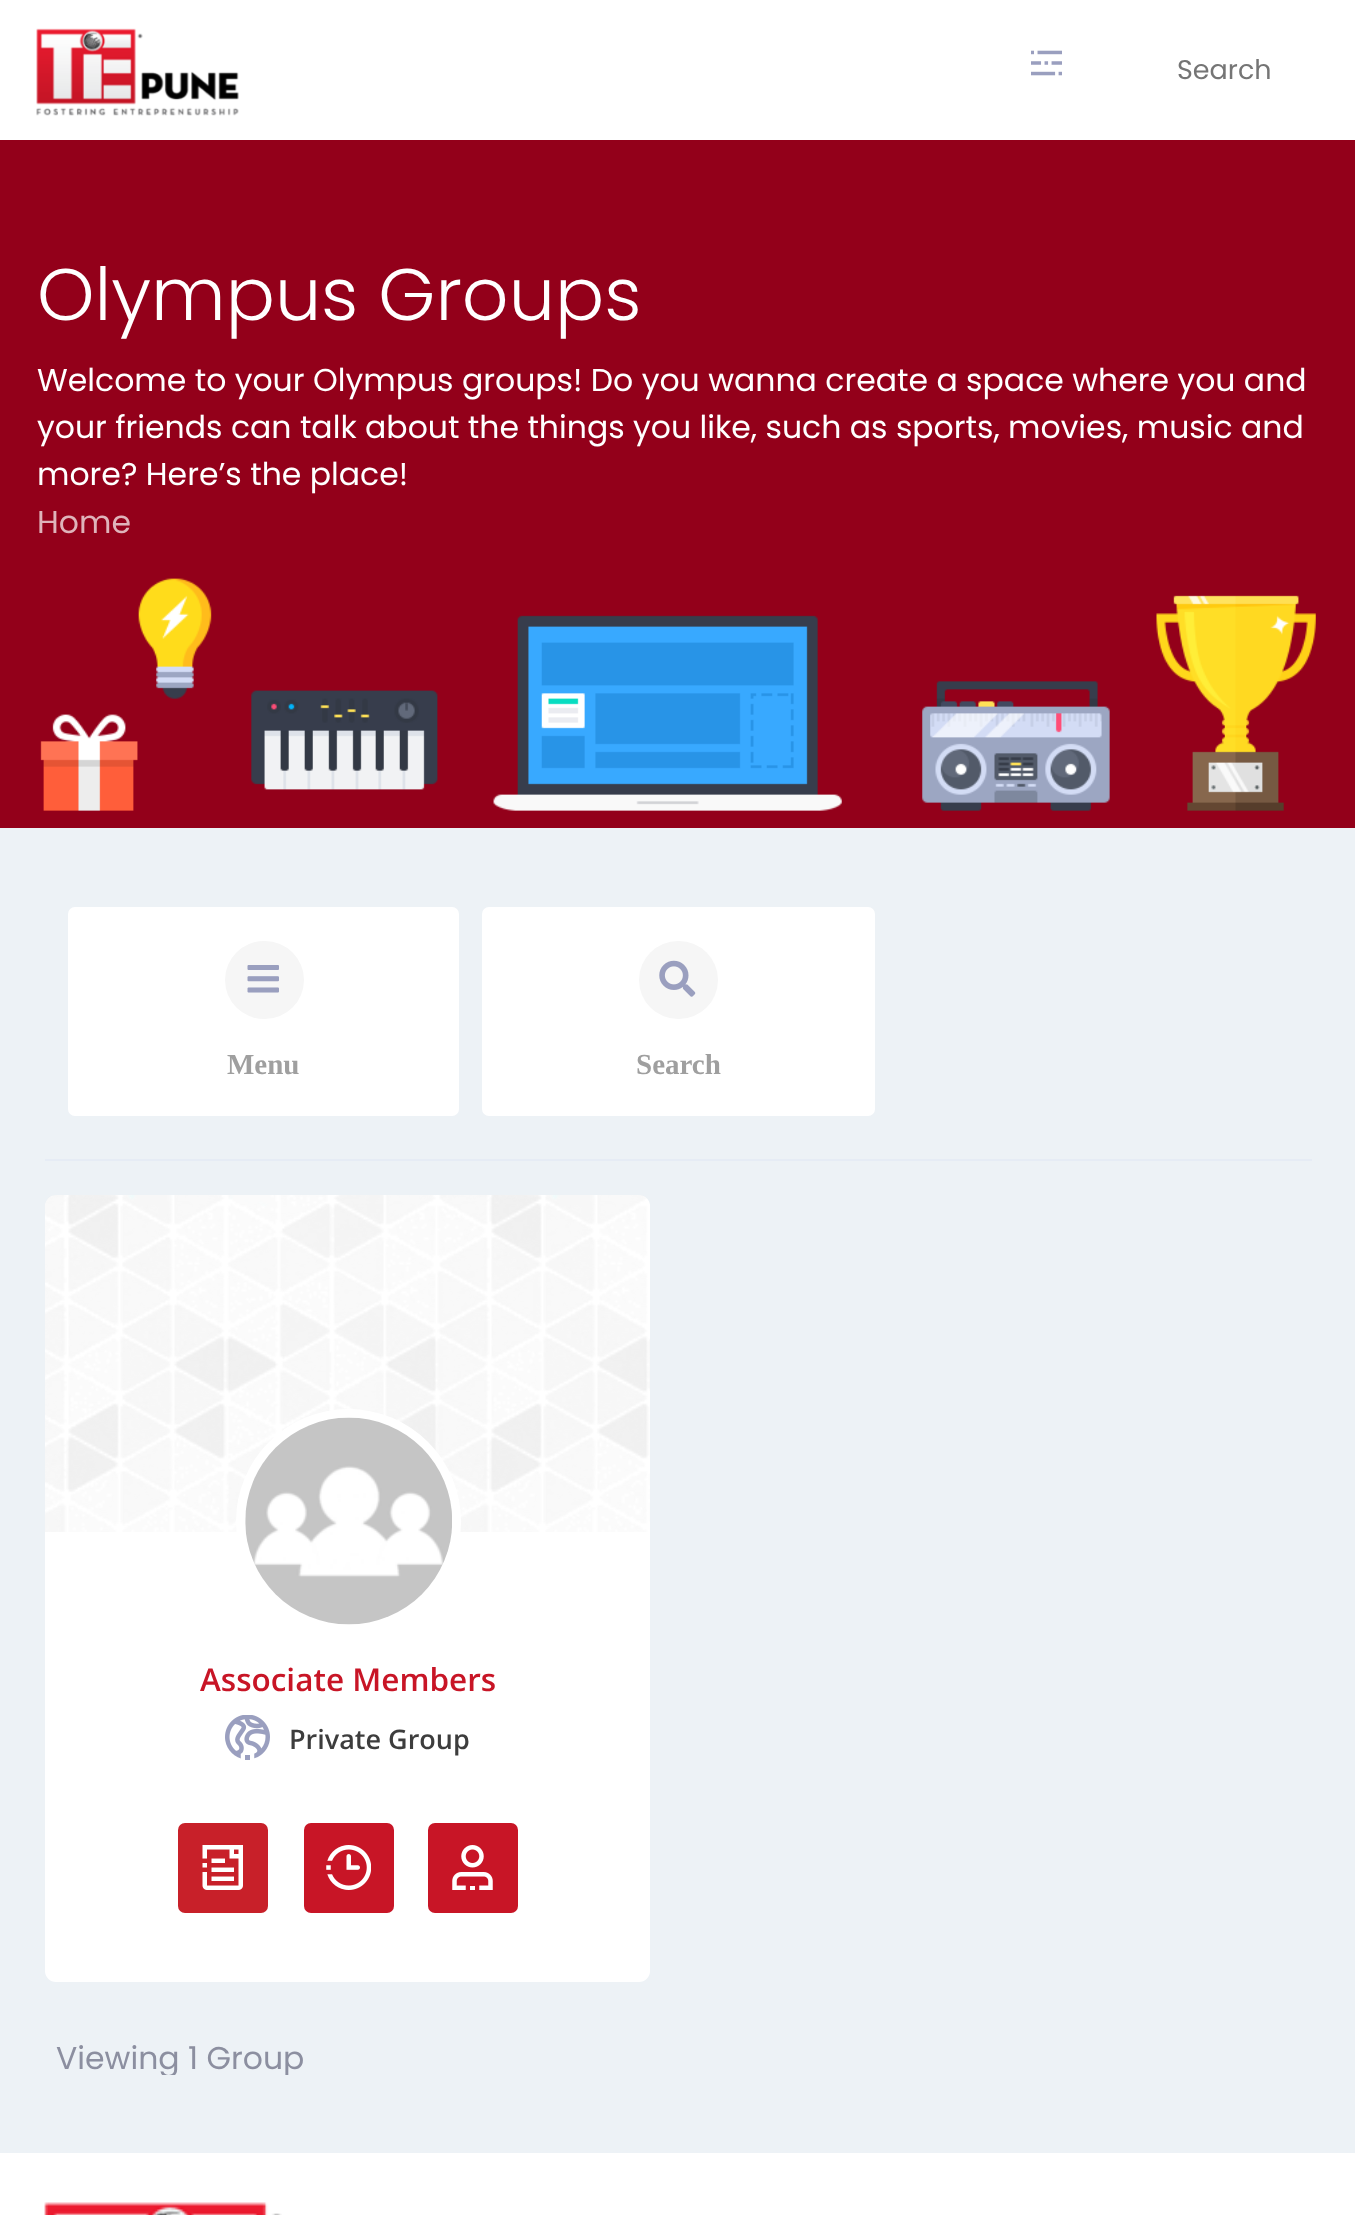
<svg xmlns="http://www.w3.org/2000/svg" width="1355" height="2215">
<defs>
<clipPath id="clip1"><rect x="56" y="2039" width="1267" height="36" rx="7"/></clipPath>
</defs>
<rect width="100%" height="100%" fill="#93001a"/>
<rect width="1355" height="140" fill="#fff"/>
<image x="36" y="28" width="203" height="88" href="media/1.png"/>
<image x="1031" y="50" width="31" height="26" href="media/2.png"/>
<text x="1177" y="79" style="font-family:Poppins;font-size:27px;fill:#757575">Search</text>
<text x="37" y="320" style="font-family:Poppins;font-size:73px;font-weight:300;fill:#fff">Olympus Groups</text>
<text x="37" y="391" style="font-family:Poppins;font-size:31.5px;fill:#fff">Welcome to your Olympus groups! Do you wanna create a space where you and</text>
<text x="37" y="438" style="font-family:Poppins;font-size:31.5px;fill:#fff">your friends can talk about the things you like, such as sports, movies, music and</text>
<text x="37" y="485" style="font-family:Poppins;font-size:31.5px;fill:#fff">more? Here’s the place!</text>
<text x="37" y="533" style="font-family:Poppins;font-size:31.5px;fill:#dfb3ba">Home</text>
<image x="40" y="578" width="1276" height="233" href="media/3.png"/>
<rect y="828" width="1355" height="1325" fill="#edf2f6"/>
<rect x="68" y="907" width="391" height="209" rx="7" fill="#fff"/>
<rect x="225" y="941" width="79" height="78" rx="39" fill="#f6f6f6"/>
<image x="247" y="965" width="32" height="28" href="media/4.png"/>
<text x="227" y="1074" style="font-family:Liberation Serif;font-size:29px;font-weight:bold;fill:#9f9f9f">Menu</text>
<rect x="482" y="907" width="393" height="209" rx="7" fill="#fff"/>
<rect x="639" y="941" width="79" height="78" rx="39" fill="#f6f6f6"/>
<image x="659" y="960" width="37" height="37" href="media/5.png"/>
<text x="636" y="1074" style="font-family:Liberation Serif;font-size:29px;font-weight:bold;fill:#9f9f9f">Search</text>
<rect x="45" y="1159" width="1267" height="2" fill="#e6ecf5"/>
<rect x="45" y="1195" width="605" height="787" rx="11" fill="#fff"/>
<image x="45" y="1195" width="605" height="337" href="media/6.png"/>
<circle cx="348.5" cy="1521.5" r="112.5" fill="#fff"/>
<image x="245" y="1417" width="207" height="208" href="media/7.png"/>
<text x="200" y="1691" style="font-family:Open Sans;font-size:31.5px;font-weight:600;fill:#c81526">Associate Members</text>
<image x="225" y="1715" width="45" height="45" href="media/8.png"/>
<text x="289" y="1749" style="font-family:Open Sans;font-size:27px;font-weight:600;fill:#3d3d3d">Private Group</text>
<rect x="178" y="1823" width="90" height="90" rx="7" fill="#c82029"/>
<image x="202" y="1845" width="41" height="45" href="media/9.png"/>
<rect x="304" y="1823" width="90" height="90" rx="7" fill="#c81526"/>
<image x="326" y="1845" width="45" height="45" href="media/10.png"/>
<rect x="428" y="1823" width="90" height="90" rx="7" fill="#c81526"/>
<image x="452" y="1845" width="41" height="45" href="media/11.png"/>
<g clip-path="url(#clip1)">
<text x="56" y="2069" style="font-family:Poppins;font-size:31.5px;fill:#8c8fa0">Viewing 1 Group</text>
</g>
<rect y="2153" width="1355" height="62" fill="#fff"/>
<image x="44" y="2202" width="238" height="13" href="media/12.png"/>
</svg>
